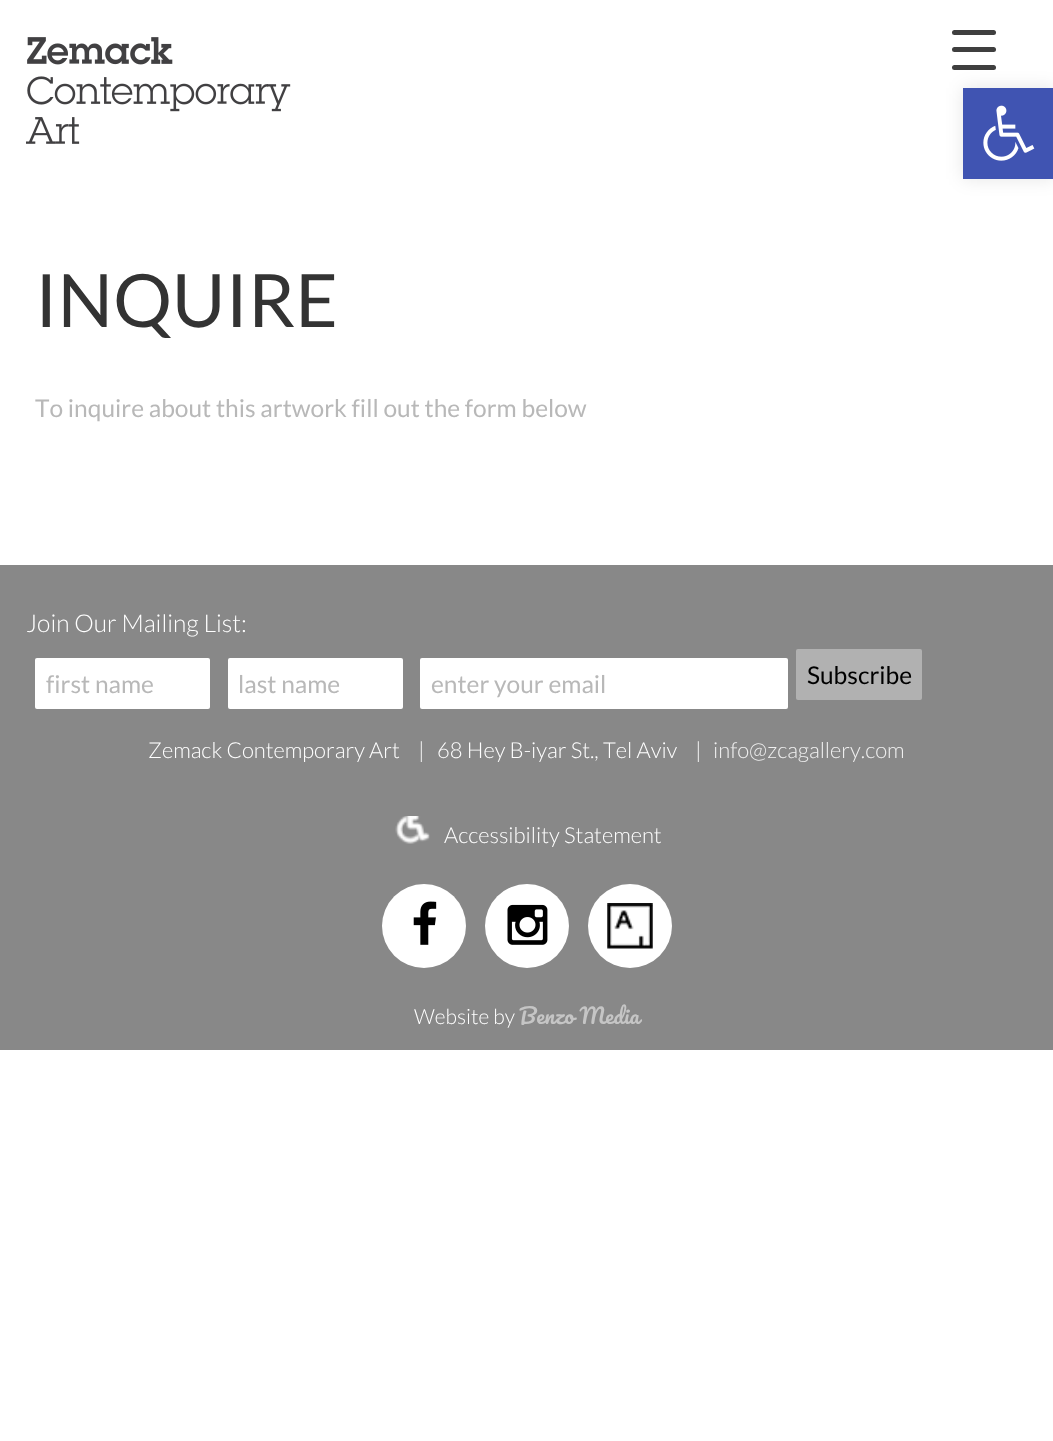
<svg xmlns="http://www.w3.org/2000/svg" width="1053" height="1441">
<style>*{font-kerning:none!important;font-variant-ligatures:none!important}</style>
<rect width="100%" height="100%" fill="#fff"/>
<image x="26" y="37" width="265" height="107" href="media/1.png"/>
<rect x="952" y="47" width="44" height="5" rx="2.5" fill="#3f3f3f"/>
<rect x="952" y="30" width="44" height="5" rx="2.5" fill="#3f3f3f"/>
<rect x="963" y="88" width="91" height="91" fill="#0000001a" filter="blur(9px)"/>
<rect x="952" y="65" width="44" height="5" rx="2.5" fill="#3f3f3f"/>
<rect x="963" y="88" width="90" height="91" fill="#4054b2"/>
<image x="983" y="105" width="52" height="56" href="media/2.png"/>
<text x="35" y="327" style="font-family:Lato;font-size:73.5px;fill:#333">INQUIRE</text>
<text x="35" y="417" style="font-family:Lato;font-size:24.5px;fill:#b8b8b8">To inquire about this artwork fill out the form below</text>
<rect y="565" width="1053" height="485" fill="#888"/>
<text x="26" y="632" style="font-family:Lato;font-size:24.5px;font-weight:300;fill:#fff">Join Our Mailing List:</text>
<rect x="35" y="658" width="175" height="51" rx="2" fill="#fff"/>
<text x="46" y="693" style="font-family:Lato;font-size:24.5px;fill:#b8b8b8">first name</text>
<rect x="228" y="658" width="175" height="51" rx="2" fill="#fff"/>
<text x="238" y="693" style="font-family:Lato;font-size:24.5px;fill:#b8b8b8">last name</text>
<rect x="420" y="658" width="368" height="51" rx="2" fill="#fff"/>
<text x="431" y="693" style="font-family:Lato;font-size:24.5px;fill:#b8b8b8">enter your email</text>
<rect x="796" y="649" width="126" height="51" rx="2" fill="#b1b1b1"/>
<text x="807" y="684" style="font-family:Lato;font-size:24.5px;fill:#000">Subscribe</text>
<text x="148" y="758" style="font-family:Lato;font-size:22px;font-weight:300;fill:#fff">Zemack Contemporary Art</text>
<text x="418" y="758" style="font-family:Lato;font-size:22px;font-weight:300;fill:#fff">|</text>
<text x="437" y="758" style="font-family:Lato;font-size:22px;font-weight:300;fill:#fff">68 Hey B-iyar St., Tel Aviv</text>
<text x="695" y="758" style="font-family:Lato;font-size:22px;font-weight:300;fill:#fff">|</text>
<text x="713" y="758" style="font-family:Lato;font-size:22px;font-weight:300;fill:#f0f0f0">info@zcagallery.com</text>
<image x="395" y="816" width="35" height="28" href="media/3.png"/>
<text x="444" y="843" style="font-family:Lato;font-size:22px;font-weight:300;fill:#fff">Accessibility Statement</text>
<circle cx="424" cy="926" r="42" fill="#fff"/>
<image x="413" y="901" width="24" height="44" href="media/4.png"/>
<circle cx="527" cy="926" r="42" fill="#fff"/>
<image x="507" y="904" width="41" height="41" href="media/5.png"/>
<circle cx="630" cy="926" r="42" fill="#fff"/>
<image x="607" y="903" width="46" height="46" href="media/6.png"/>
<text x="414" y="1024" style="font-family:Lato;font-size:21px;font-weight:300;fill:#fff">Website by</text>
<text x="519" y="1024" style="font-family:Pacifico;font-size:21px;fill:#c5c5c5">Benzo Media</text>
</svg>
